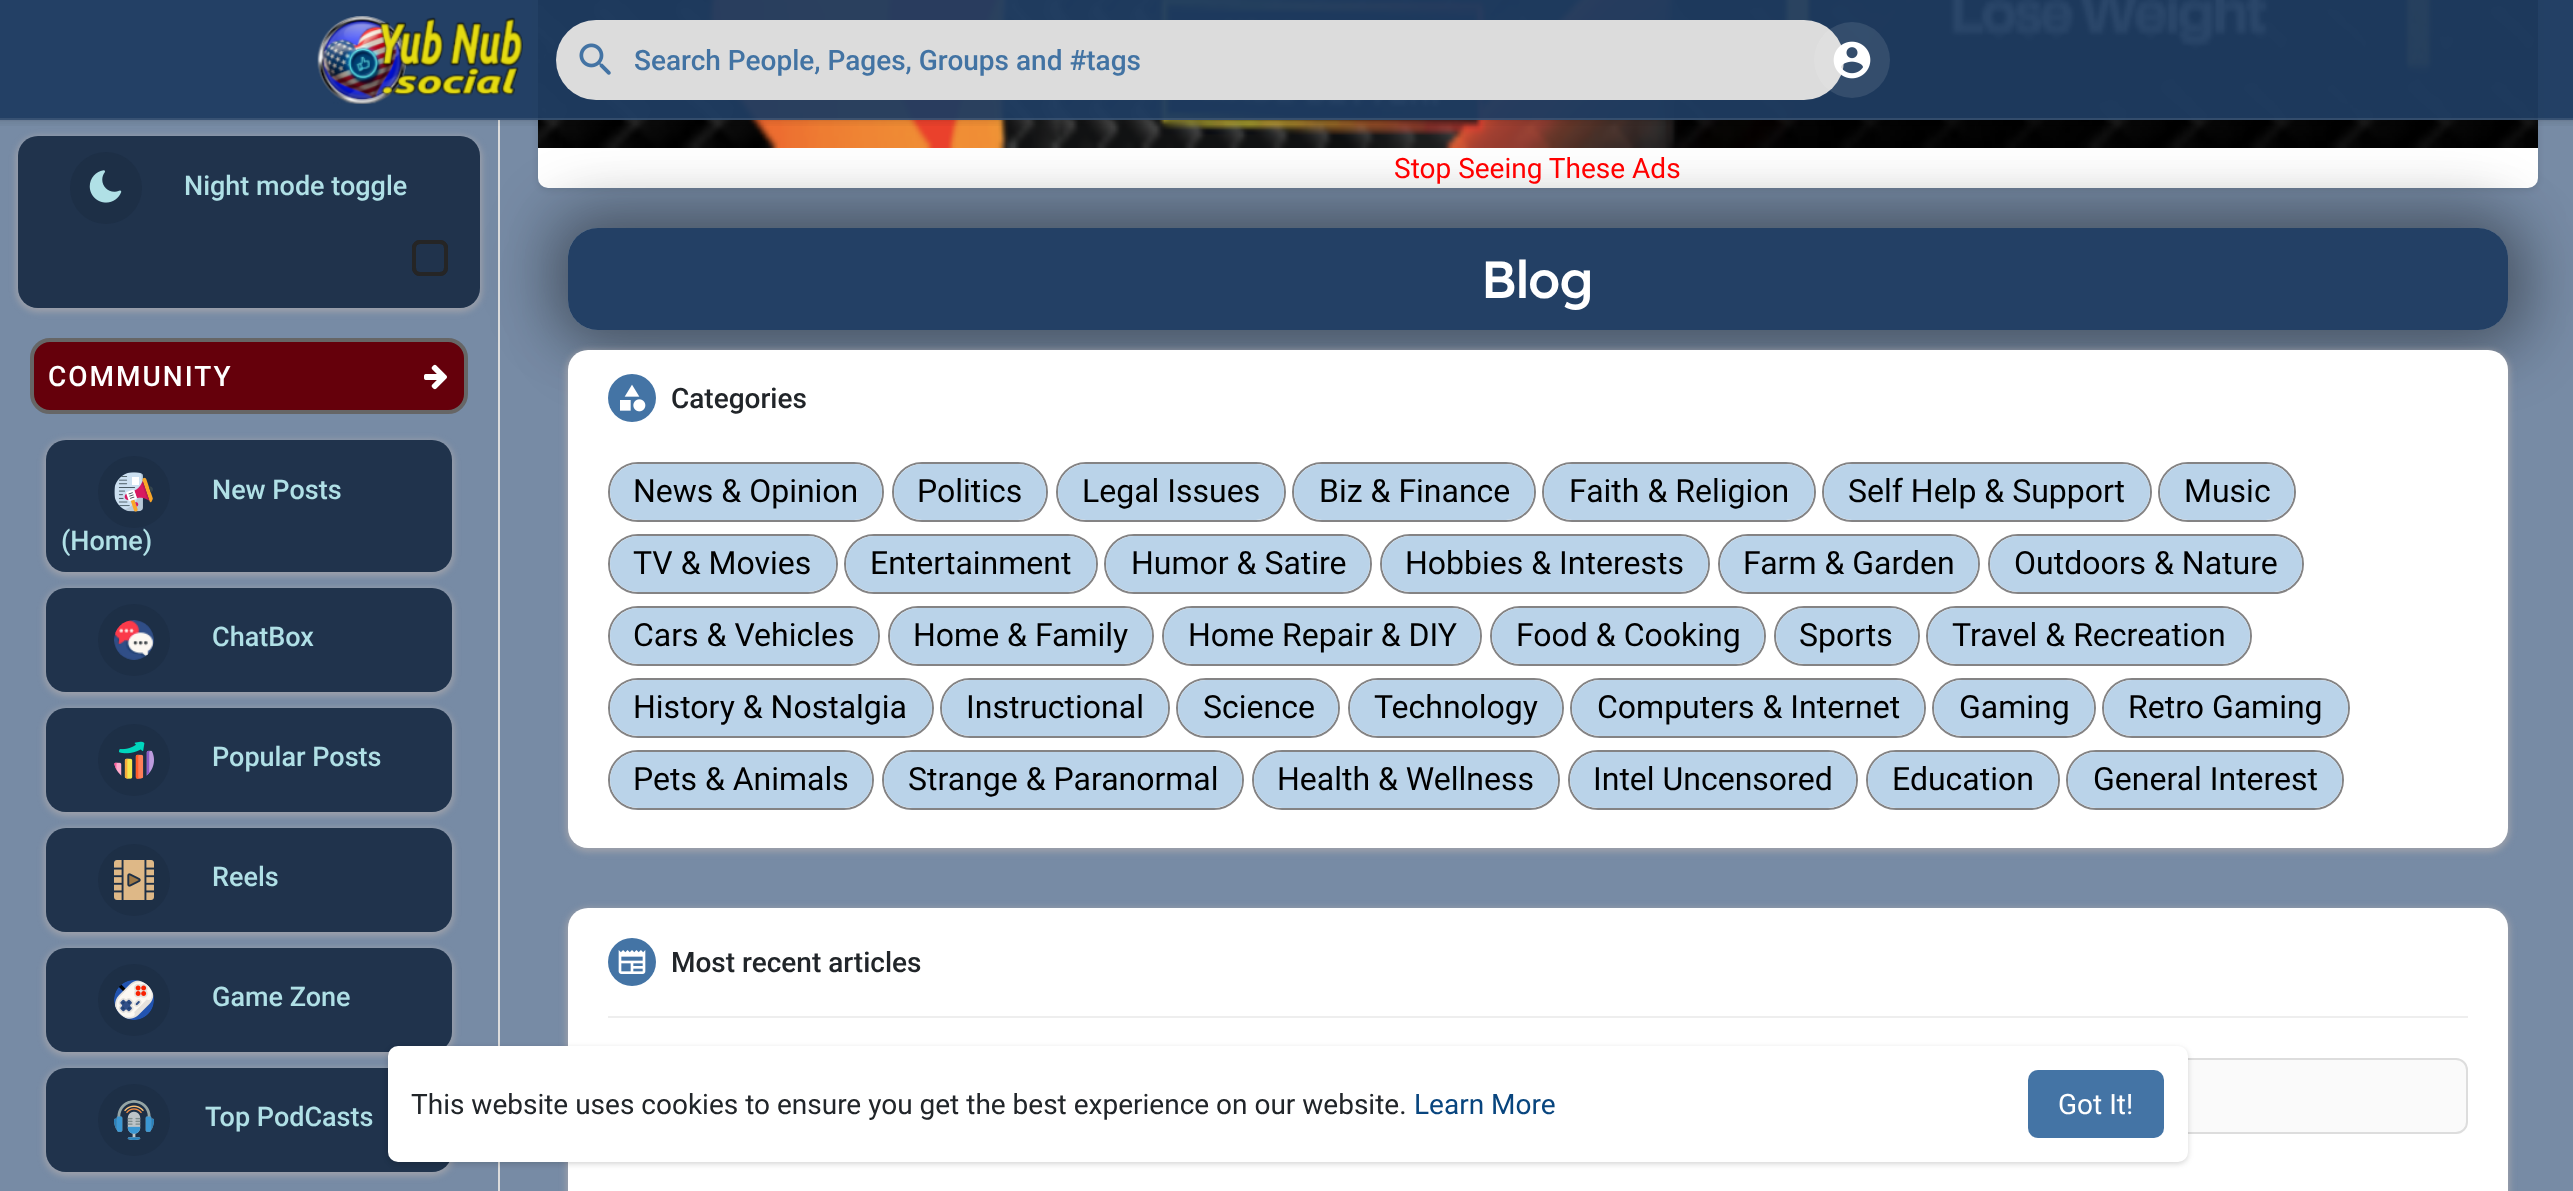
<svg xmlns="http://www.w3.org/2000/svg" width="2573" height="1191">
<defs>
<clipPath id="clip1"><path d="M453 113h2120v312h-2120zm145 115h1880c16.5 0 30 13.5 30 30v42c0 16.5-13.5 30-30 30h-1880c-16.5 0-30-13.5-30-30v-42c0-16.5 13.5-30 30-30z" clip-rule="evenodd"/></clipPath>
<clipPath id="clip2"><path d="M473 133h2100v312h-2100zm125 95h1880c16.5 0 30 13.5 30 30v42c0 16.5-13.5 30-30 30h-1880c-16.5 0-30-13.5-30-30v-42c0-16.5 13.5-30 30-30z" clip-rule="evenodd"/></clipPath>
<clipPath id="clip3"><path d="M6 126h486v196h-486zm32 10h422c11 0 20 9 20 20v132c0 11-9 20-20 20h-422c-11 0-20-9-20-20v-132c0-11 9-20 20-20z" clip-rule="evenodd"/></clipPath>
<clipPath id="clip4"><path d="M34 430h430v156h-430zm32 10h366c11 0 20 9 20 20v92c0 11-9 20-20 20h-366c-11 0-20-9-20-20v-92c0-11 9-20 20-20z" clip-rule="evenodd"/></clipPath>
<clipPath id="clip5"><path d="M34 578h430v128h-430zm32 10h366c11 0 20 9 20 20v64c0 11-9 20-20 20h-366c-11 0-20-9-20-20v-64c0-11 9-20 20-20z" clip-rule="evenodd"/></clipPath>
<clipPath id="clip6"><path d="M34 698h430v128h-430zm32 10h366c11 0 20 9 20 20v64c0 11-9 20-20 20h-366c-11 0-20-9-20-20v-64c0-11 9-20 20-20z" clip-rule="evenodd"/></clipPath>
<clipPath id="clip7"><path d="M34 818h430v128h-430zm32 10h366c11 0 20 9 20 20v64c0 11-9 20-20 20h-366c-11 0-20-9-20-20v-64c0-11 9-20 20-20z" clip-rule="evenodd"/></clipPath>
<clipPath id="clip8"><path d="M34 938h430v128h-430zm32 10h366c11 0 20 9 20 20v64c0 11-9 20-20 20h-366c-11 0-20-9-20-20v-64c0-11 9-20 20-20z" clip-rule="evenodd"/></clipPath>
<clipPath id="clip9"><path d="M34 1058h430v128h-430zm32 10h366c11 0 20 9 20 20v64c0 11-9 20-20 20h-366c-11 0-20-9-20-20v-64c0-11 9-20 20-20z" clip-rule="evenodd"/></clipPath>
</defs>
<rect width="100%" height="100%" fill="#778ba5"/>
<rect x="538" y="-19" width="2000" height="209" rx="10" fill="#0000001a" filter="blur(3px)"/>
<rect x="538" y="-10" width="2000" height="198" rx="10" fill="#fff"/>
<g clip-path="url(#clip1)">
<rect x="544" y="204" width="1968" height="130" rx="44" fill="#00000038" filter="blur(30px)"/>
</g>
<g clip-path="url(#clip2)">
<rect x="564" y="224" width="1968" height="130" rx="44" fill="#00000040" filter="blur(30px)"/>
</g>
<image x="538" y="0" width="2000" height="148" href="media/13.png"/>
<rect width="2573" height="120" fill="#1f3c61f2"/>
<image x="317" y="16" width="206" height="88" href="media/1.png"/>
<rect x="556" y="20" width="1288" height="80" rx="40" fill="#dcdcdc"/>
<image x="579" y="43" width="32" height="32" href="media/2.png"/>
<text x="634" y="70" style="font-family:Roboto;font-size:28px;font-weight:500;fill:#4273a3">Search People, Pages, Groups and #tags</text>
<rect x="498" y="120" width="2" height="1071" fill="#dcdcdc"/>
<image x="0" y="118" width="2573" height="8" href="media/3.png"/>
<circle cx="1852" cy="60" r="38" fill="#ffffff1a"/>
<image x="1833" y="41" width="38" height="38" href="media/4.png"/>
<g clip-path="url(#clip3)">
<rect x="16" y="136" width="466" height="176" rx="22" fill="#b3aeae9c" filter="blur(3px)"/>
</g>
<rect x="18" y="136" width="462" height="172" rx="20" fill="#1b2e47f2"/>
<circle cx="106" cy="188" r="36" fill="#1d2f46"/>
<image x="89" y="170" width="33" height="33" href="media/5.png"/>
<text x="184" y="195" style="font-family:Roboto;font-size:27px;font-weight:500;fill:#b0e0e6">Night mode toggle</text>
<rect x="414" y="242" width="32" height="32" rx="6" fill="none" stroke="#252525" stroke-width="4"/>
<rect x="414" y="242" width="32" height="32" rx="6" fill="none" stroke="#252525" stroke-width="4"/>
<rect x="32" y="340" width="434" height="72" rx="18" fill="#65000b" stroke="#666" stroke-width="4"/>
<text x="48" y="386" style="font-family:Roboto;font-size:28px;font-weight:500;letter-spacing:2px;fill:#fff">COMMUNITY</text>
<image x="424" y="364" width="23" height="26" href="media/6.png"/>
<g clip-path="url(#clip4)">
<rect x="44" y="440" width="410" height="136" rx="22" fill="#b3aeae9c" filter="blur(3px)"/>
</g>
<rect x="46" y="440" width="406" height="132" rx="20" fill="#1b2e47f2"/>
<circle cx="134" cy="492" r="36" fill="#1d2f46"/>
<image x="114" y="472" width="39" height="40" href="media/7.png"/>
<text x="212" y="499" style="font-family:Roboto;font-size:27px;font-weight:500;fill:#b0e0e6">New Posts</text>
<text x="61" y="550" style="font-family:Roboto;font-size:27px;font-weight:500;fill:#b0e0e6">(Home)</text>
<g clip-path="url(#clip5)">
<rect x="44" y="588" width="410" height="108" rx="22" fill="#b3aeae9c" filter="blur(3px)"/>
</g>
<rect x="46" y="588" width="406" height="104" rx="20" fill="#1b2e47f2"/>
<circle cx="134" cy="640" r="36" fill="#1d2f46"/>
<image x="114" y="620" width="40" height="40" href="media/8.png"/>
<text x="212" y="646" style="font-family:Roboto;font-size:27px;font-weight:500;fill:#b0e0e6">ChatBox</text>
<g clip-path="url(#clip6)">
<rect x="44" y="708" width="410" height="108" rx="22" fill="#b3aeae9c" filter="blur(3px)"/>
</g>
<rect x="46" y="708" width="406" height="104" rx="20" fill="#1b2e47f2"/>
<circle cx="134" cy="760" r="36" fill="#1d2f46"/>
<image x="114" y="741" width="40" height="38" href="media/9.png"/>
<text x="212" y="766" style="font-family:Roboto;font-size:27px;font-weight:500;fill:#b0e0e6">Popular Posts</text>
<g clip-path="url(#clip7)">
<rect x="44" y="828" width="410" height="108" rx="22" fill="#b3aeae9c" filter="blur(3px)"/>
</g>
<rect x="46" y="828" width="406" height="104" rx="20" fill="#1b2e47f2"/>
<circle cx="134" cy="880" r="36" fill="#1d2f46"/>
<image x="114" y="860" width="40" height="40" href="media/10.png"/>
<text x="212" y="886" style="font-family:Roboto;font-size:27px;font-weight:500;fill:#b0e0e6">Reels</text>
<g clip-path="url(#clip8)">
<rect x="44" y="948" width="410" height="108" rx="22" fill="#b3aeae9c" filter="blur(3px)"/>
</g>
<rect x="46" y="948" width="406" height="104" rx="20" fill="#1b2e47f2"/>
<circle cx="134" cy="1000" r="36" fill="#1d2f46"/>
<image x="114" y="980" width="40" height="40" href="media/11.png"/>
<text x="212" y="1006" style="font-family:Roboto;font-size:27px;font-weight:500;fill:#b0e0e6">Game Zone</text>
<g clip-path="url(#clip9)">
<rect x="44" y="1068" width="410" height="108" rx="22" fill="#b3aeae9c" filter="blur(3px)"/>
</g>
<rect x="46" y="1068" width="406" height="104" rx="20" fill="#1b2e47f2"/>
<circle cx="134" cy="1120" r="36" fill="#1d2f46"/>
<image x="114" y="1100" width="40" height="40" href="media/12.png"/>
<text x="205" y="1126" style="font-family:Roboto;font-size:27px;font-weight:500;fill:#b0e0e6">Top PodCasts</text>
<text x="1394" y="178" style="font-family:Roboto;font-size:28px;fill:#f00">Stop Seeing These Ads</text>
<rect x="568" y="228" width="1940" height="102" rx="30" fill="#1f3c61f2"/>
<text x="1481" y="298" style="font-family:Readex Pro;font-size:52px;font-weight:500;letter-spacing:-1px;fill:#fff">Blog</text>
<rect x="566" y="350" width="1944" height="502" rx="22" fill="#b3aeae9c" filter="blur(3px)"/>
<rect x="568" y="350" width="1940" height="498" rx="20" fill="#fff"/>
<circle cx="632" cy="398" r="24" fill="#4474a5"/>
<image x="620" y="384" width="26" height="28" href="media/14.png"/>
<text x="671" y="408" style="font-family:Roboto;font-size:28px;font-weight:500;fill:#212529">Categories</text>
<rect x="609" y="463" width="274" height="58" rx="29" fill="none" stroke="#848384" stroke-width="2"/>
<rect x="610" y="464" width="272" height="56" rx="28" fill="#bad3e9"/>
<text x="633" y="502" style="font-family:Roboto;font-size:32px;fill:#000">News &amp; Opinion</text>
<rect x="893" y="463" width="154" height="58" rx="29" fill="none" stroke="#848384" stroke-width="2"/>
<rect x="894" y="464" width="152" height="56" rx="28" fill="#bad3e9"/>
<text x="917" y="502" style="font-family:Roboto;font-size:32px;fill:#000">Politics</text>
<rect x="1057" y="463" width="228" height="58" rx="29" fill="none" stroke="#848384" stroke-width="2"/>
<rect x="1058" y="464" width="226" height="56" rx="28" fill="#bad3e9"/>
<text x="1082" y="502" style="font-family:Roboto;font-size:32px;fill:#000">Legal Issues</text>
<rect x="1293" y="463" width="242" height="58" rx="29" fill="none" stroke="#848384" stroke-width="2"/>
<rect x="1294" y="464" width="240" height="56" rx="28" fill="#bad3e9"/>
<text x="1319" y="502" style="font-family:Roboto;font-size:32px;fill:#000">Biz &amp; Finance</text>
<rect x="1543" y="463" width="272" height="58" rx="29" fill="none" stroke="#848384" stroke-width="2"/>
<rect x="1544" y="464" width="270" height="56" rx="28" fill="#bad3e9"/>
<text x="1569" y="502" style="font-family:Roboto;font-size:32px;fill:#000">Faith &amp; Religion</text>
<rect x="1823" y="463" width="328" height="58" rx="29" fill="none" stroke="#848384" stroke-width="2"/>
<rect x="1824" y="464" width="326" height="56" rx="28" fill="#bad3e9"/>
<text x="1848" y="502" style="font-family:Roboto;font-size:32px;fill:#000">Self Help &amp; Support</text>
<rect x="2159" y="463" width="136" height="58" rx="29" fill="none" stroke="#848384" stroke-width="2"/>
<rect x="2160" y="464" width="134" height="56" rx="28" fill="#bad3e9"/>
<text x="2184" y="502" style="font-family:Roboto;font-size:32px;fill:#000">Music</text>
<rect x="609" y="535" width="228" height="58" rx="29" fill="none" stroke="#848384" stroke-width="2"/>
<rect x="610" y="536" width="226" height="56" rx="28" fill="#bad3e9"/>
<text x="633" y="574" style="font-family:Roboto;font-size:32px;fill:#000">TV &amp; Movies</text>
<rect x="845" y="535" width="252" height="58" rx="29" fill="none" stroke="#848384" stroke-width="2"/>
<rect x="846" y="536" width="250" height="56" rx="28" fill="#bad3e9"/>
<text x="870" y="574" style="font-family:Roboto;font-size:32px;fill:#000">Entertainment</text>
<rect x="1105" y="535" width="266" height="58" rx="29" fill="none" stroke="#848384" stroke-width="2"/>
<rect x="1106" y="536" width="264" height="56" rx="28" fill="#bad3e9"/>
<text x="1131" y="574" style="font-family:Roboto;font-size:32px;fill:#000">Humor &amp; Satire</text>
<rect x="1381" y="535" width="328" height="58" rx="29" fill="none" stroke="#848384" stroke-width="2"/>
<rect x="1382" y="536" width="326" height="56" rx="28" fill="#bad3e9"/>
<text x="1405" y="574" style="font-family:Roboto;font-size:32px;fill:#000">Hobbies &amp; Interests</text>
<rect x="1719" y="535" width="260" height="58" rx="29" fill="none" stroke="#848384" stroke-width="2"/>
<rect x="1720" y="536" width="258" height="56" rx="28" fill="#bad3e9"/>
<text x="1743" y="574" style="font-family:Roboto;font-size:32px;fill:#000">Farm &amp; Garden</text>
<rect x="1989" y="535" width="314" height="58" rx="29" fill="none" stroke="#848384" stroke-width="2"/>
<rect x="1990" y="536" width="312" height="56" rx="28" fill="#bad3e9"/>
<text x="2014" y="574" style="font-family:Roboto;font-size:32px;fill:#000">Outdoors &amp; Nature</text>
<rect x="609" y="607" width="270" height="58" rx="29" fill="none" stroke="#848384" stroke-width="2"/>
<rect x="610" y="608" width="268" height="56" rx="28" fill="#bad3e9"/>
<text x="633" y="646" style="font-family:Roboto;font-size:32px;fill:#000">Cars &amp; Vehicles</text>
<rect x="889" y="607" width="264" height="58" rx="29" fill="none" stroke="#848384" stroke-width="2"/>
<rect x="890" y="608" width="262" height="56" rx="28" fill="#bad3e9"/>
<text x="913" y="646" style="font-family:Roboto;font-size:32px;fill:#000">Home &amp; Family</text>
<rect x="1163" y="607" width="318" height="58" rx="29" fill="none" stroke="#848384" stroke-width="2"/>
<rect x="1164" y="608" width="316" height="56" rx="28" fill="#bad3e9"/>
<text x="1188" y="646" style="font-family:Roboto;font-size:32px;fill:#000">Home Repair &amp; DIY</text>
<rect x="1491" y="607" width="274" height="58" rx="29" fill="none" stroke="#848384" stroke-width="2"/>
<rect x="1492" y="608" width="272" height="56" rx="28" fill="#bad3e9"/>
<text x="1516" y="646" style="font-family:Roboto;font-size:32px;fill:#000">Food &amp; Cooking</text>
<rect x="1775" y="607" width="144" height="58" rx="29" fill="none" stroke="#848384" stroke-width="2"/>
<rect x="1776" y="608" width="142" height="56" rx="28" fill="#bad3e9"/>
<text x="1799" y="646" style="font-family:Roboto;font-size:32px;fill:#000">Sports</text>
<rect x="1927" y="607" width="324" height="58" rx="29" fill="none" stroke="#848384" stroke-width="2"/>
<rect x="1928" y="608" width="322" height="56" rx="28" fill="#bad3e9"/>
<text x="1952" y="646" style="font-family:Roboto;font-size:32px;fill:#000">Travel &amp; Recreation</text>
<rect x="609" y="679" width="324" height="58" rx="29" fill="none" stroke="#848384" stroke-width="2"/>
<rect x="610" y="680" width="322" height="56" rx="28" fill="#bad3e9"/>
<text x="633" y="718" style="font-family:Roboto;font-size:32px;fill:#000">History &amp; Nostalgia</text>
<rect x="941" y="679" width="228" height="58" rx="29" fill="none" stroke="#848384" stroke-width="2"/>
<rect x="942" y="680" width="226" height="56" rx="28" fill="#bad3e9"/>
<text x="966" y="718" style="font-family:Roboto;font-size:32px;fill:#000">Instructional</text>
<rect x="1177" y="679" width="162" height="58" rx="29" fill="none" stroke="#848384" stroke-width="2"/>
<rect x="1178" y="680" width="160" height="56" rx="28" fill="#bad3e9"/>
<text x="1203" y="718" style="font-family:Roboto;font-size:32px;fill:#000">Science</text>
<rect x="1349" y="679" width="214" height="58" rx="29" fill="none" stroke="#848384" stroke-width="2"/>
<rect x="1350" y="680" width="212" height="56" rx="28" fill="#bad3e9"/>
<text x="1374" y="718" style="font-family:Roboto;font-size:32px;fill:#000">Technology</text>
<rect x="1571" y="679" width="354" height="58" rx="29" fill="none" stroke="#848384" stroke-width="2"/>
<rect x="1572" y="680" width="352" height="56" rx="28" fill="#bad3e9"/>
<text x="1597" y="718" style="font-family:Roboto;font-size:32px;fill:#000">Computers &amp; Internet</text>
<rect x="1933" y="679" width="162" height="58" rx="29" fill="none" stroke="#848384" stroke-width="2"/>
<rect x="1934" y="680" width="160" height="56" rx="28" fill="#bad3e9"/>
<text x="1959" y="718" style="font-family:Roboto;font-size:32px;fill:#000">Gaming</text>
<rect x="2103" y="679" width="246" height="58" rx="29" fill="none" stroke="#848384" stroke-width="2"/>
<rect x="2104" y="680" width="244" height="56" rx="28" fill="#bad3e9"/>
<text x="2128" y="718" style="font-family:Roboto;font-size:32px;fill:#000">Retro Gaming</text>
<rect x="609" y="751" width="264" height="58" rx="29" fill="none" stroke="#848384" stroke-width="2"/>
<rect x="610" y="752" width="262" height="56" rx="28" fill="#bad3e9"/>
<text x="633" y="790" style="font-family:Roboto;font-size:32px;fill:#000">Pets &amp; Animals</text>
<rect x="883" y="751" width="360" height="58" rx="29" fill="none" stroke="#848384" stroke-width="2"/>
<rect x="884" y="752" width="358" height="56" rx="28" fill="#bad3e9"/>
<text x="908" y="790" style="font-family:Roboto;font-size:32px;fill:#000">Strange &amp; Paranormal</text>
<rect x="1253" y="751" width="306" height="58" rx="29" fill="none" stroke="#848384" stroke-width="2"/>
<rect x="1254" y="752" width="304" height="56" rx="28" fill="#bad3e9"/>
<text x="1277" y="790" style="font-family:Roboto;font-size:32px;fill:#000">Health &amp; Wellness</text>
<rect x="1569" y="751" width="288" height="58" rx="29" fill="none" stroke="#848384" stroke-width="2"/>
<rect x="1570" y="752" width="286" height="56" rx="28" fill="#bad3e9"/>
<text x="1593" y="790" style="font-family:Roboto;font-size:32px;fill:#000">Intel Uncensored</text>
<rect x="1867" y="751" width="192" height="58" rx="29" fill="none" stroke="#848384" stroke-width="2"/>
<rect x="1868" y="752" width="190" height="56" rx="28" fill="#bad3e9"/>
<text x="1892" y="790" style="font-family:Roboto;font-size:32px;fill:#000">Education</text>
<rect x="2067" y="751" width="276" height="58" rx="29" fill="none" stroke="#848384" stroke-width="2"/>
<rect x="2068" y="752" width="274" height="56" rx="28" fill="#bad3e9"/>
<text x="2093" y="790" style="font-family:Roboto;font-size:32px;fill:#000">General Interest</text>
<rect x="566" y="908" width="1944" height="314" rx="22" fill="#b3aeae9c" filter="blur(3px)"/>
<rect x="568" y="908" width="1940" height="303" rx="20" fill="#fff"/>
<rect x="608" y="1016" width="1860" height="2" fill="#eee"/>
<circle cx="632" cy="962" r="24" fill="#4474a5"/>
<image x="618" y="950" width="28" height="24" href="media/15.png"/>
<text x="671" y="972" style="font-family:Roboto;font-size:28px;font-weight:500;fill:#212529">Most recent articles</text>
<rect x="609" y="1059" width="1858" height="74" rx="11" fill="#fafafa" stroke="#ddd" stroke-width="2"/>
<rect x="388" y="1048" width="1800" height="116" rx="10" fill="#0000000f" filter="blur(2px)"/>
<rect x="388" y="1048" width="1800" height="116" rx="10" fill="#0000001a" filter="blur(3px)"/>
<rect x="388" y="1046" width="1800" height="116" rx="10" fill="#fff"/>
<text x="411" y="1114" style="font-family:Roboto;font-size:28px;fill:#212529">This website uses cookies to ensure you get the best experience on our website.</text>
<text x="1414" y="1114" style="font-family:Roboto;font-size:28px;fill:#08457e">Learn More</text>
<rect x="2028" y="1070" width="136" height="68" rx="10" fill="#4474a5"/>
<text x="2058" y="1114" style="font-family:Roboto;font-size:28px;fill:#fff">Got It!</text>
</svg>
